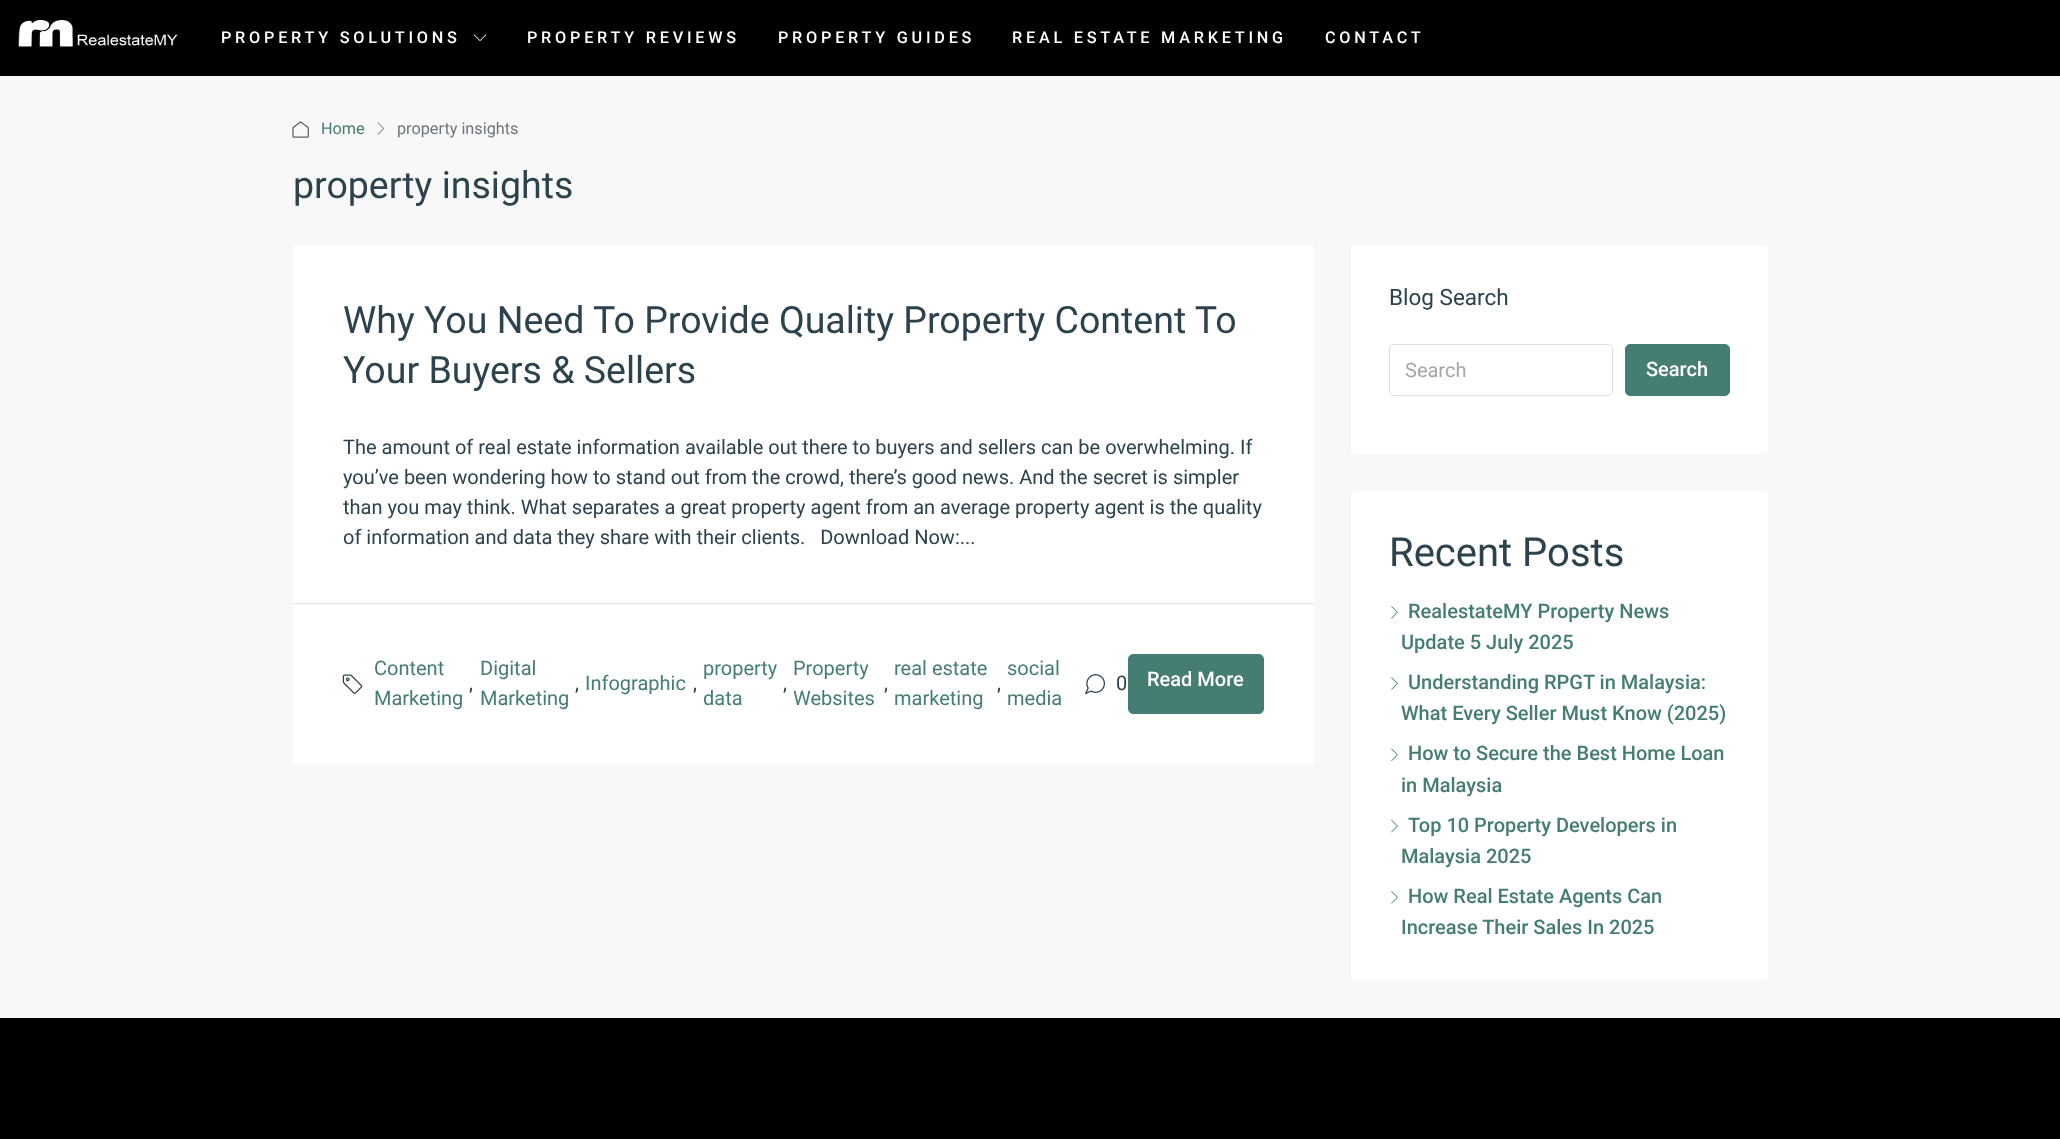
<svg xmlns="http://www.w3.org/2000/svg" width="2060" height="1139">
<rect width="100%" height="100%" fill="#f8f8f8"/>
<rect width="2060" height="76" fill="#000"/>
<image x="18" y="20" width="160" height="27" href="media/1.png"/>
<text x="221" y="43" style="font-family:Roboto;font-size:16.25px;font-weight:500;letter-spacing:3.75px;fill:#fff">PROPERTY SOLUTIONS</text>
<image x="473" y="34" width="14" height="7" href="media/2.png"/>
<text x="527" y="43" style="font-family:Roboto;font-size:16.25px;font-weight:500;letter-spacing:3.75px;fill:#fff">PROPERTY REVIEWS</text>
<text x="778" y="43" style="font-family:Roboto;font-size:16.25px;font-weight:500;letter-spacing:3.75px;fill:#fff">PROPERTY GUIDES</text>
<text x="1012" y="43" style="font-family:Roboto;font-size:16.25px;font-weight:500;letter-spacing:3.75px;fill:#fff">REAL ESTATE MARKETING</text>
<text x="1325" y="43" style="font-family:Roboto;font-size:16.25px;font-weight:500;letter-spacing:3.75px;fill:#fff">CONTACT</text>
<image x="292" y="121" width="17" height="17" href="media/3.png"/>
<text x="321" y="134" style="font-family:Roboto;font-size:16.25px;fill:#457d72">Home</text>
<image x="377" y="122" width="7" height="13" href="media/4.png"/>
<text x="397" y="134" style="font-family:Roboto;font-size:16.25px;fill:#6c757d">property insights</text>
<text x="293" y="198" style="font-family:Roboto;font-size:37.5px;fill:#2c424c">property insights</text>
<rect x="293" y="245" width="1021" height="519" fill="#fff"/>
<text x="343" y="333" style="font-family:Roboto;font-size:37.5px;fill:#2c424c">Why You Need To Provide Quality Property Content To</text>
<text x="343" y="383" style="font-family:Roboto;font-size:37.5px;fill:#2c424c">Your Buyers &amp; Sellers</text>
<text x="343" y="454" style="font-family:Roboto;font-size:20px;fill:#2c424c">The amount of real estate information available out there to buyers and sellers can be overwhelming. If</text>
<text x="343" y="484" style="font-family:Roboto;font-size:20px;fill:#2c424c">you’ve been wondering how to stand out from the crowd, there’s good news. And the secret is simpler</text>
<text x="343" y="514" style="font-family:Roboto;font-size:20px;fill:#2c424c">than you may think. What separates a great property agent from an average property agent is the quality</text>
<text x="343" y="544" style="font-family:Roboto;font-size:20px;fill:#2c424c" xml:space="preserve">of information and data they share with their clients.   Download Now:...</text>
<rect x="293" y="603" width="1021" height="1" fill="#dce0e0"/>
<image x="342" y="674" width="21" height="20" href="media/5.png"/>
<text x="374" y="675" style="font-family:Roboto;font-size:20px;fill:#457d72">Content</text>
<text x="374" y="705" style="font-family:Roboto;font-size:20px;fill:#457d72">Marketing</text>
<text x="469" y="690" style="font-family:Roboto;font-size:20px;fill:#2c424c">,</text>
<text x="480" y="675" style="font-family:Roboto;font-size:20px;fill:#457d72">Digital</text>
<text x="480" y="705" style="font-family:Roboto;font-size:20px;fill:#457d72">Marketing</text>
<text x="575" y="690" style="font-family:Roboto;font-size:20px;fill:#2c424c">,</text>
<text x="585" y="690" style="font-family:Roboto;font-size:20px;fill:#457d72">Infographic</text>
<text x="693" y="690" style="font-family:Roboto;font-size:20px;fill:#2c424c">,</text>
<text x="703" y="675" style="font-family:Roboto;font-size:20px;fill:#457d72">property</text>
<text x="703" y="705" style="font-family:Roboto;font-size:20px;fill:#457d72">data</text>
<text x="783" y="690" style="font-family:Roboto;font-size:20px;fill:#2c424c">,</text>
<text x="793" y="675" style="font-family:Roboto;font-size:20px;fill:#457d72">Property</text>
<text x="793" y="705" style="font-family:Roboto;font-size:20px;fill:#457d72">Websites</text>
<text x="884" y="690" style="font-family:Roboto;font-size:20px;fill:#2c424c">,</text>
<text x="894" y="675" style="font-family:Roboto;font-size:20px;fill:#457d72">real estate</text>
<text x="894" y="705" style="font-family:Roboto;font-size:20px;fill:#457d72">marketing</text>
<text x="997" y="690" style="font-family:Roboto;font-size:20px;fill:#2c424c">,</text>
<text x="1007" y="675" style="font-family:Roboto;font-size:20px;fill:#457d72">social</text>
<text x="1007" y="705" style="font-family:Roboto;font-size:20px;fill:#457d72">media</text>
<image x="1085" y="674" width="20" height="21" href="media/6.png"/>
<text x="1116" y="690" style="font-family:Roboto;font-size:20px;fill:#2c424c">0</text>
<rect x="1128.5" y="654.5" width="135" height="59" rx="4.5" fill="#457d72" stroke="#457d72"/>
<text x="1147" y="686" style="font-family:Roboto;font-size:20px;font-weight:500;fill:#fff">Read More</text>
<rect x="1351" y="245" width="417" height="209" rx="5" fill="#fff"/>
<text x="1389" y="305" style="font-family:Roboto;font-size:22.5px;fill:#2c424c">Blog Search</text>
<rect x="1389.5" y="344.5" width="223" height="51" rx="4.5" fill="none" stroke="#dce0e0"/>
<text x="1405" y="377" style="font-family:Roboto;font-size:20px;fill:#a1a7a8">Search</text>
<rect x="1625.5" y="344.5" width="104" height="51" rx="4.5" fill="#457d72" stroke="#457d72"/>
<text x="1646" y="376" style="font-family:Roboto;font-size:20px;font-weight:500;fill:#fff">Search</text>
<rect x="1351" y="491" width="417" height="489" rx="5" fill="#fff"/>
<text x="1389" y="566" style="font-family:Roboto;font-size:40px;fill:#2c424c">Recent Posts</text>
<image x="1391" y="606" width="7" height="13" href="media/7.png"/>
<text x="1408" y="618" style="font-family:Roboto;font-size:20px;font-weight:500;fill:#457d72">RealestateMY Property News</text>
<text x="1401" y="649" style="font-family:Roboto;font-size:20px;font-weight:500;fill:#457d72">Update 5 July 2025</text>
<image x="1391" y="677" width="7" height="13" href="media/8.png"/>
<text x="1408" y="689" style="font-family:Roboto;font-size:20px;font-weight:500;fill:#457d72">Understanding RPGT in Malaysia:</text>
<text x="1401" y="720" style="font-family:Roboto;font-size:20px;font-weight:500;fill:#457d72">What Every Seller Must Know (2025)</text>
<image x="1391" y="748" width="7" height="13" href="media/9.png"/>
<text x="1408" y="760" style="font-family:Roboto;font-size:20px;font-weight:500;fill:#457d72">How to Secure the Best Home Loan</text>
<text x="1401" y="792" style="font-family:Roboto;font-size:20px;font-weight:500;fill:#457d72">in Malaysia</text>
<image x="1391" y="819" width="7" height="14" href="media/10.png"/>
<text x="1408" y="832" style="font-family:Roboto;font-size:20px;font-weight:500;fill:#457d72">Top 10 Property Developers in</text>
<text x="1401" y="863" style="font-family:Roboto;font-size:20px;font-weight:500;fill:#457d72">Malaysia 2025</text>
<image x="1391" y="891" width="7" height="13" href="media/7.png"/>
<text x="1408" y="903" style="font-family:Roboto;font-size:20px;font-weight:500;fill:#457d72">How Real Estate Agents Can</text>
<text x="1401" y="934" style="font-family:Roboto;font-size:20px;font-weight:500;fill:#457d72">Increase Their Sales In 2025</text>
<rect y="1018" width="2060" height="121" fill="#000"/>
</svg>
